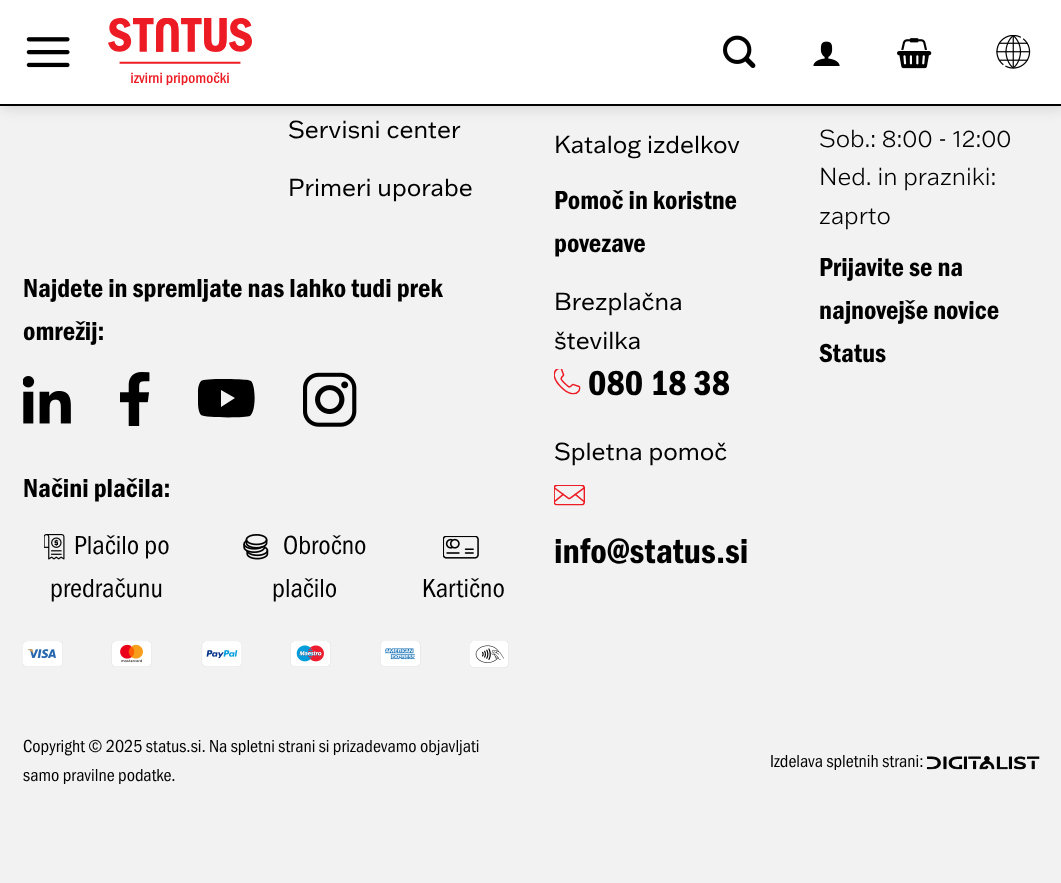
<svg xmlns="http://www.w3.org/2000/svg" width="1061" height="883">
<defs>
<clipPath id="clip1"><rect x="198" y="378" width="57" height="41"/></clipPath>
</defs>
<rect width="100%" height="100%" fill="#f2f2f2"/>
<rect x="2" y="2" width="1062" height="105" fill="#00000026" filter="blur(7.5px)"/>
<rect width="1061" height="104" fill="#fff"/>
<rect y="104" width="1061" height="2" fill="#000"/>
<image x="26" y="37" width="44" height="31" href="media/1.png"/>
<image x="108" y="18" width="144" height="68" href="media/2.png"/>
<image x="723" y="35" width="33" height="33" href="media/3.png"/>
<image x="813" y="41" width="27" height="25" href="media/4.png"/>
<image x="897" y="38" width="35" height="31" href="media/5.png"/>
<image x="996" y="35" width="35" height="34" href="media/6.png"/>
<text x="288" y="138" style="font-family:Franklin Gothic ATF;font-size:24px;fill:#000">Servisni center</text>
<text x="288" y="196" style="font-family:Franklin Gothic ATF;font-size:24px;fill:#000">Primeri uporabe</text>
<text x="23" y="297" style="font-family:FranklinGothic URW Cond;font-size:27px;font-weight:600;fill:#000">Najdete in spremljate nas lahko tudi prek</text>
<text x="23" y="340" style="font-family:FranklinGothic URW Cond;font-size:27px;font-weight:600;fill:#000">omrežij:</text>
<image x="23" y="376" width="48" height="48" href="media/7.png"/>
<image x="120" y="372" width="30" height="54" href="media/8.png"/>
<g clip-path="url(#clip1)">
<path d="M251 381l-3-1c-6-1-44-2-47 1c-4 5-3 13-3 19c0 5 0 11 3 15c3 3 45 3 49 1c6-4 6-30 1-35zm-30 26v-17l14 8z" fill="#000"/>
</g>
<image x="303" y="372" width="54" height="55" href="media/9.png"/>
<text x="23" y="497" style="font-family:FranklinGothic URW Cond;font-size:27px;font-weight:600;fill:#000">Načini plačila:</text>
<image x="44" y="534" width="21" height="26" href="media/10.png"/>
<text x="74" y="554" style="font-family:FranklinGothic URW Cond;font-size:27px;fill:#000">Plačilo po</text>
<text x="50" y="597" style="font-family:FranklinGothic URW Cond;font-size:27px;fill:#000">predračunu</text>
<image x="243" y="534" width="26" height="26" href="media/11.png"/>
<text x="283" y="554" style="font-family:FranklinGothic URW Cond;font-size:27px;fill:#000">Obročno</text>
<text x="272" y="597" style="font-family:FranklinGothic URW Cond;font-size:27px;fill:#000">plačilo</text>
<image x="443" y="536" width="36" height="23" href="media/12.png"/>
<text x="422" y="597" style="font-family:FranklinGothic URW Cond;font-size:27px;fill:#000">Kartično</text>
<image x="23" y="641" width="40" height="26" href="media/13.png"/>
<image x="111" y="641" width="41" height="26" href="media/14.png"/>
<image x="201" y="641" width="41" height="26" href="media/15.png"/>
<image x="290" y="641" width="41" height="26" href="media/16.png"/>
<image x="380" y="641" width="41" height="26" href="media/17.png"/>
<image x="470" y="641" width="39" height="27" href="media/18.png"/>
<text x="554" y="153" style="font-family:Franklin Gothic ATF;font-size:24px;fill:#000">Katalog izdelkov</text>
<text x="554" y="209" style="font-family:FranklinGothic URW Cond;font-size:27px;font-weight:600;fill:#000">Pomoč in koristne</text>
<text x="554" y="252" style="font-family:FranklinGothic URW Cond;font-size:27px;font-weight:600;fill:#000">povezave</text>
<text x="554" y="310" style="font-family:Franklin Gothic ATF;font-size:24px;fill:#000">Brezplačna</text>
<text x="554" y="349" style="font-family:Franklin Gothic ATF;font-size:24px;fill:#000">številka</text>
<image x="554" y="369" width="27" height="26" href="media/19.png"/>
<text x="588" y="395" style="font-family:FranklinGothic URW Cond;font-size:36px;font-weight:600;fill:#000">080 18 38</text>
<text x="554" y="460" style="font-family:Franklin Gothic ATF;font-size:24px;fill:#000">Spletna pomoč</text>
<image x="554" y="485" width="31" height="21" href="media/20.png"/>
<text x="554" y="563" style="font-family:FranklinGothic URW Cond;font-size:36px;font-weight:600;fill:#000">info@status.si</text>
<text x="819" y="147" style="font-family:Franklin Gothic ATF;font-size:24px;font-weight:300;fill:#000">Sob.: 8:00 - 12:00</text>
<text x="819" y="185" style="font-family:Franklin Gothic ATF;font-size:24px;font-weight:300;fill:#000">Ned. in prazniki:</text>
<text x="819" y="224" style="font-family:Franklin Gothic ATF;font-size:24px;font-weight:300;fill:#000">zaprto</text>
<text x="819" y="276" style="font-family:FranklinGothic URW Cond;font-size:27px;font-weight:600;fill:#000">Prijavite se na</text>
<text x="819" y="319" style="font-family:FranklinGothic URW Cond;font-size:27px;font-weight:600;fill:#000">najnovejše novice</text>
<text x="819" y="362" style="font-family:FranklinGothic URW Cond;font-size:27px;font-weight:600;fill:#000">Status</text>
<text x="23" y="752" style="font-family:FranklinGothic URW Cond;font-size:18px;fill:#000">Copyright © 2025 status.si. Na spletni strani si prizadevamo objavljati</text>
<text x="23" y="781" style="font-family:FranklinGothic URW Cond;font-size:18px;fill:#000">samo pravilne podatke.</text>
<text x="770" y="767" style="font-family:FranklinGothic URW Cond;font-size:18px;fill:#000">Izdelava spletnih strani:</text>
<image x="927" y="756" width="113" height="14" href="media/21.png"/>
</svg>
